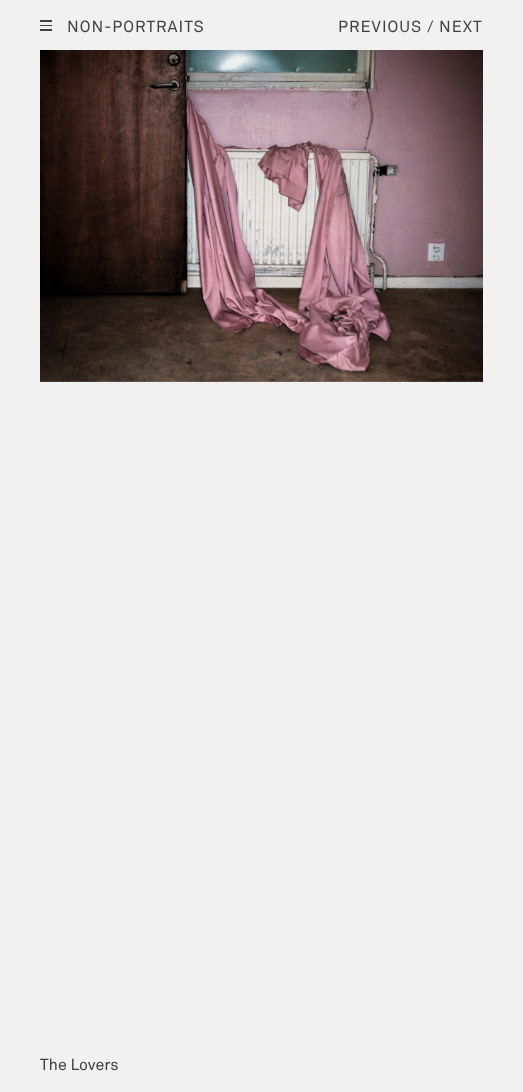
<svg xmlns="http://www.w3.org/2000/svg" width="523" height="1092">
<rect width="100%" height="100%" fill="#f1f1f1"/>
<text x="67" y="32" style="font-family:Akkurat;font-size:16px;letter-spacing:1px;fill:#404040">NON-PORTRAITS</text>
<rect x="40" y="20" width="12" height="2" fill="#404040"/>
<rect x="40" y="25" width="12" height="1" fill="#404040"/>
<rect x="40" y="29" width="12" height="2" fill="#404040"/>
<text x="338" y="32" style="font-family:Akkurat;font-size:16px;letter-spacing:1px;fill:#404040">PREVIOUS / NEXT</text>
<image x="40" y="50" width="443" height="332" href="media/1.png"/>
<text x="40" y="1070" style="font-family:Akkurat;font-size:16px;fill:#404040">The Lovers</text>
</svg>
